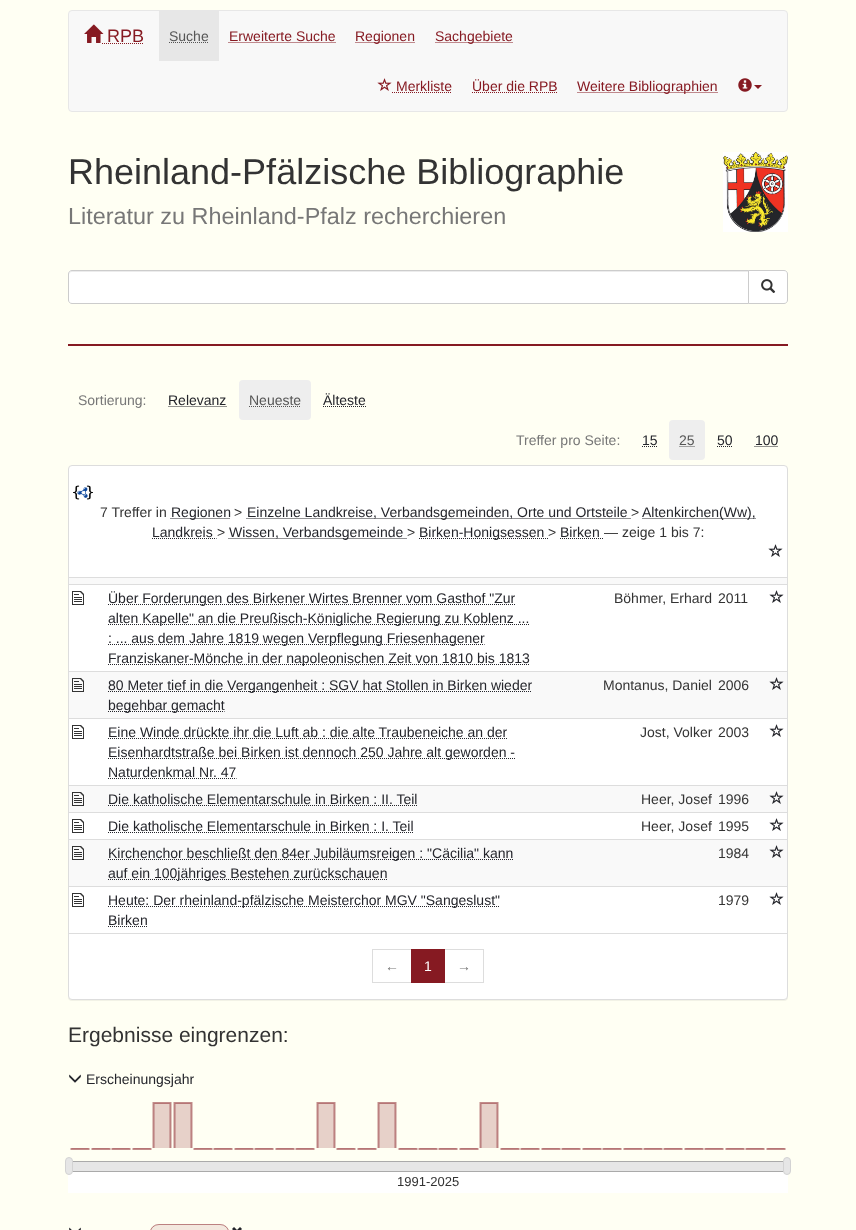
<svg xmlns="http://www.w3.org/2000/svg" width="856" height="1230">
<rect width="100%" height="100%" fill="#fffff3"/>
<rect x="68.5" y="10.5" width="719" height="101" rx="3.5" fill="#f8f8f8" stroke="#e7e7e7"/>
<image x="84" y="24" width="20" height="19" href="media/1.png"/>
<text x="107" y="42" style="font-family:Liberation Sans;font-size:18px;fill:#861a22">RPB</text>
<path d="M102 43.5h42" fill="none" stroke="#861a22" stroke-dasharray="1 1"/>
<rect x="159" y="11" width="60" height="50" fill="#e7e7e7"/>
<text x="169" y="41" style="font-family:Liberation Sans;font-size:14px;fill:#555">Suche</text>
<path d="M169 42.5h39.5" fill="none" stroke="#555" stroke-dasharray="1 1"/>
<text x="229" y="41" style="font-family:Liberation Sans;font-size:14px;fill:#861a22">Erweiterte Suche</text>
<path d="M228.5 42.5h107" fill="none" stroke="#861a22" stroke-dasharray="1 1"/>
<path d="M355.5 42.5h60" fill="none" stroke="#861a22" stroke-dasharray="1 1"/>
<text x="355" y="41" style="font-family:Liberation Sans;font-size:14px;fill:#861a22">Regionen</text>
<path d="M435.5 42.5h77.5" fill="none" stroke="#861a22" stroke-dasharray="1 1"/>
<text x="435" y="41" style="font-family:Liberation Sans;font-size:14px;fill:#861a22">Sachgebiete</text>
<image x="377" y="78" width="15" height="13" href="media/2.png"/>
<text x="396" y="91" style="font-family:Liberation Sans;font-size:14px;fill:#861a22">Merkliste</text>
<path d="M392 92.5h60" fill="none" stroke="#861a22" stroke-dasharray="1 1"/>
<text x="472" y="91" style="font-family:Liberation Sans;font-size:14px;fill:#861a22">Über die RPB</text>
<path d="M472 92.5h85.5" fill="none" stroke="#861a22" stroke-dasharray="1 1"/>
<path d="M577.5 92.5h140.5" fill="none" stroke="#861a22" stroke-dasharray="1 1"/>
<text x="577" y="91" style="font-family:Liberation Sans;font-size:14px;fill:#861a22">Weitere Bibliographien</text>
<image x="738" y="78" width="14" height="14" href="media/3.png"/>
<path d="M754 85h8l-4 4z" fill="#861a22"/>
<text x="68" y="184" style="font-family:Liberation Sans;font-size:36px;fill:#333">Rheinland-Pfälzische Bibliographie</text>
<text x="68" y="224" style="font-family:Liberation Sans;font-size:23.4px;fill:#777">Literatur zu Rheinland-Pfalz recherchieren</text>
<image x="723" y="152" width="65" height="80" href="media/4.png"/>
<path d="M72 270h677v34h-677c-2 0-4-2-4-4v-26c0-2 2-4 4-4z" fill="#fff"/>
<path d="M72 272h676v-1h-676c-2 0-3 1-3 3v1c0-2 1-3 3-3z" fill="#ececec"/>
<path d="M72 270.5h676.5v33h-676.5c-2 0-3.5-1.5-3.5-3.5v-26c0-2 1.5-3.5 3.5-3.5z" fill="none" stroke="#ccc"/>
<path d="M748.5 270.5h35.5c2 0 3.5 1.5 3.5 3.5v26c0 2-1.5 3.5-3.5 3.5h-35.5z" fill="#fff" stroke="#ccc"/>
<image x="761" y="279" width="15" height="14" href="media/5.png"/>
<rect x="68" y="344" width="720" height="2" fill="#861a22"/>
<text x="78" y="405" style="font-family:Liberation Sans;font-size:14px;fill:#777">Sortierung:</text>
<text x="168" y="405" style="font-family:Liberation Sans;font-size:14px;fill:#24252b">Relevanz</text>
<path d="M168.5 406.5h58.5" fill="none" stroke="#24252b" stroke-dasharray="1 1"/>
<rect x="239" y="380" width="72" height="40" rx="4" fill="#eee"/>
<text x="249" y="405" style="font-family:Liberation Sans;font-size:14px;fill:#555">Neueste</text>
<path d="M249 406.5h52" fill="none" stroke="#555" stroke-dasharray="1 1"/>
<text x="323" y="405" style="font-family:Liberation Sans;font-size:14px;fill:#24252b">Älteste</text>
<path d="M323 406.5h43" fill="none" stroke="#24252b" stroke-dasharray="1 1"/>
<text x="516" y="445" style="font-family:Liberation Sans;font-size:14px;fill:#777">Treffer pro Seite:</text>
<text x="642" y="445" style="font-family:Liberation Sans;font-size:14px;fill:#24252b">15</text>
<path d="M642 446.5h15.5" fill="none" stroke="#24252b" stroke-dasharray="1 1"/>
<rect x="669" y="420" width="36" height="40" rx="4" fill="#eee"/>
<text x="679" y="445" style="font-family:Liberation Sans;font-size:14px;fill:#555">25</text>
<path d="M679.5 446.5h15.5" fill="none" stroke="#555" stroke-dasharray="1 1"/>
<text x="717" y="445" style="font-family:Liberation Sans;font-size:14px;fill:#24252b">50</text>
<path d="M717 446.5h15.5" fill="none" stroke="#24252b" stroke-dasharray="1 1"/>
<text x="755" y="445" style="font-family:Liberation Sans;font-size:14px;fill:#24252b">100</text>
<path d="M754.5 446.5h23.5" fill="none" stroke="#24252b" stroke-dasharray="1 1"/>
<rect x="68" y="466" width="720" height="535" rx="4" fill="#0000000d" filter="blur(0.5px)"/>
<rect x="68.5" y="465.5" width="719" height="534" rx="3.5" fill="#fff" stroke="#ddd"/>
<image x="73" y="485" width="20" height="15" href="media/6.png"/>
<text x="100" y="517" style="font-family:Liberation Sans;font-size:14px;fill:#333">7 Treffer in</text>
<path d="M170.5 518.5h60" fill="none" stroke="#24252b" stroke-dasharray="1 1"/>
<text x="171" y="517" style="font-family:Liberation Sans;font-size:14px;fill:#24252b">Regionen</text>
<text x="234" y="517" style="font-family:Liberation Sans;font-size:14px;fill:#333">&gt;</text>
<path d="M246.5 518.5h384.5" fill="none" stroke="#24252b" stroke-dasharray="1 1"/>
<text x="247" y="517" style="font-family:Liberation Sans;font-size:14px;fill:#24252b">Einzelne Landkreise, Verbandsgemeinden, Orte und Ortsteile</text>
<text x="631" y="517" style="font-family:Liberation Sans;font-size:14px;fill:#333">&gt;</text>
<path d="M642.5 518.5h113.5" fill="none" stroke="#24252b" stroke-dasharray="1 1"/>
<text x="642" y="517" style="font-family:Liberation Sans;font-size:14px;fill:#24252b">Altenkirchen(Ww),</text>
<text x="152" y="537" style="font-family:Liberation Sans;font-size:14px;fill:#24252b">Landkreis</text>
<path d="M152 538.5h64.5" fill="none" stroke="#24252b" stroke-dasharray="1 1"/>
<text x="217" y="537" style="font-family:Liberation Sans;font-size:14px;fill:#333">&gt;</text>
<path d="M228.5 538.5h178.5" fill="none" stroke="#24252b" stroke-dasharray="1 1"/>
<text x="229" y="537" style="font-family:Liberation Sans;font-size:14px;fill:#24252b">Wissen, Verbandsgemeinde</text>
<text x="407" y="537" style="font-family:Liberation Sans;font-size:14px;fill:#333">&gt;</text>
<path d="M419 538.5h129" fill="none" stroke="#24252b" stroke-dasharray="1 1"/>
<text x="419" y="537" style="font-family:Liberation Sans;font-size:14px;fill:#24252b">Birken-Honigsessen</text>
<text x="548" y="537" style="font-family:Liberation Sans;font-size:14px;fill:#333">&gt;</text>
<text x="560" y="537" style="font-family:Liberation Sans;font-size:14px;fill:#24252b">Birken</text>
<path d="M560 538.5h43.5" fill="none" stroke="#24252b" stroke-dasharray="1 1"/>
<text x="604" y="537" style="font-family:Liberation Sans;font-size:14px;fill:#333">— zeige 1 bis 7:</text>
<image x="768" y="544" width="15" height="13" href="media/7.png"/>
<rect x="69" y="577" width="718" height="1" fill="#ddd"/>
<rect x="69" y="578" width="718" height="6" fill="#f9f9f9"/>
<rect x="69" y="584" width="719" height="1" fill="#ddd"/>
<image x="769" y="590" width="15" height="13" href="media/7.png"/>
<image x="72" y="591" width="12" height="14" href="media/8.png"/>
<path d="M108 604.5h407" fill="none" stroke="#24252b" stroke-dasharray="1 1"/>
<text x="108" y="603" style="font-family:Liberation Sans;font-size:14px;fill:#24252b">Über Forderungen des Birkener Wirtes Brenner vom Gasthof "Zur</text>
<path d="M108 624.5h421" fill="none" stroke="#24252b" stroke-dasharray="1 1"/>
<text x="108" y="623" style="font-family:Liberation Sans;font-size:14px;fill:#24252b">alten Kapelle" an die Preußisch-Königliche Regierung zu Koblenz ...</text>
<path d="M108 644.5h376.5" fill="none" stroke="#24252b" stroke-dasharray="1 1"/>
<text x="108" y="643" style="font-family:Liberation Sans;font-size:14px;fill:#24252b">: ... aus dem Jahre 1819 wegen Verpflegung Friesenhagener</text>
<path d="M108 664.5h421.5" fill="none" stroke="#24252b" stroke-dasharray="1 1"/>
<text x="108" y="663" style="font-family:Liberation Sans;font-size:14px;fill:#24252b">Franziskaner-Mönche in der napoleonischen Zeit von 1810 bis 1813</text>
<text x="614" y="603" style="font-family:Liberation Sans;font-size:14px;fill:#333">Böhmer, Erhard</text>
<text x="718" y="603" style="font-family:Liberation Sans;font-size:14px;fill:#333">2011</text>
<rect x="69" y="672" width="718" height="46" fill="#f9f9f9"/>
<rect x="69" y="671" width="719" height="1" fill="#ddd"/>
<image x="769" y="677" width="15" height="13" href="media/9.png"/>
<image x="72" y="678" width="12" height="14" href="media/10.png"/>
<path d="M108 691.5h424" fill="none" stroke="#24252b" stroke-dasharray="1 1"/>
<text x="108" y="690" style="font-family:Liberation Sans;font-size:14px;fill:#24252b">80 Meter tief in die Vergangenheit : SGV hat Stollen in Birken wieder</text>
<path d="M108 711.5h116.5" fill="none" stroke="#24252b" stroke-dasharray="1 1"/>
<text x="108" y="710" style="font-family:Liberation Sans;font-size:14px;fill:#24252b">begehbar gemacht</text>
<text x="603" y="690" style="font-family:Liberation Sans;font-size:14px;fill:#333">Montanus, Daniel</text>
<text x="718" y="690" style="font-family:Liberation Sans;font-size:14px;fill:#333">2006</text>
<rect x="69" y="718" width="719" height="1" fill="#ddd"/>
<image x="769" y="724" width="15" height="13" href="media/7.png"/>
<image x="72" y="725" width="12" height="14" href="media/8.png"/>
<text x="108" y="737" style="font-family:Liberation Sans;font-size:14px;fill:#24252b">Eine Winde drückte ihr die Luft ab : die alte Traubeneiche an der</text>
<path d="M108 738.5h399" fill="none" stroke="#24252b" stroke-dasharray="1 1"/>
<path d="M108 758.5h407" fill="none" stroke="#24252b" stroke-dasharray="1 1"/>
<text x="108" y="757" style="font-family:Liberation Sans;font-size:14px;fill:#24252b">Eisenhardtstraße bei Birken ist dennoch 250 Jahre alt geworden -</text>
<text x="108" y="777" style="font-family:Liberation Sans;font-size:14px;fill:#24252b">Naturdenkmal Nr. 47</text>
<path d="M108 778.5h128.5" fill="none" stroke="#24252b" stroke-dasharray="1 1"/>
<text x="640" y="737" style="font-family:Liberation Sans;font-size:14px;fill:#333">Jost, Volker</text>
<text x="718" y="737" style="font-family:Liberation Sans;font-size:14px;fill:#333">2003</text>
<rect x="69" y="786" width="718" height="26" fill="#f9f9f9"/>
<rect x="69" y="785" width="719" height="1" fill="#ddd"/>
<image x="769" y="791" width="15" height="13" href="media/9.png"/>
<image x="72" y="792" width="12" height="14" href="media/10.png"/>
<text x="108" y="804" style="font-family:Liberation Sans;font-size:14px;fill:#24252b">Die katholische Elementarschule in Birken : II. Teil</text>
<path d="M108 805.5h309.5" fill="none" stroke="#24252b" stroke-dasharray="1 1"/>
<text x="641" y="804" style="font-family:Liberation Sans;font-size:14px;fill:#333">Heer, Josef</text>
<text x="718" y="804" style="font-family:Liberation Sans;font-size:14px;fill:#333">1996</text>
<rect x="69" y="812" width="719" height="1" fill="#ddd"/>
<image x="769" y="818" width="15" height="13" href="media/7.png"/>
<image x="72" y="819" width="12" height="14" href="media/8.png"/>
<text x="108" y="831" style="font-family:Liberation Sans;font-size:14px;fill:#24252b">Die katholische Elementarschule in Birken : I. Teil</text>
<path d="M108 832.5h305.5" fill="none" stroke="#24252b" stroke-dasharray="1 1"/>
<text x="641" y="831" style="font-family:Liberation Sans;font-size:14px;fill:#333">Heer, Josef</text>
<text x="718" y="831" style="font-family:Liberation Sans;font-size:14px;fill:#333">1995</text>
<rect x="69" y="840" width="718" height="46" fill="#f9f9f9"/>
<rect x="69" y="839" width="719" height="1" fill="#ddd"/>
<image x="769" y="845" width="15" height="13" href="media/9.png"/>
<image x="72" y="846" width="12" height="14" href="media/10.png"/>
<path d="M108 859.5h405" fill="none" stroke="#24252b" stroke-dasharray="1 1"/>
<text x="108" y="858" style="font-family:Liberation Sans;font-size:14px;fill:#24252b">Kirchenchor beschließt den 84er Jubiläumsreigen : "Cäcilia" kann</text>
<path d="M108 879.5h279.5" fill="none" stroke="#24252b" stroke-dasharray="1 1"/>
<text x="108" y="878" style="font-family:Liberation Sans;font-size:14px;fill:#24252b">auf ein 100jähriges Bestehen zurückschauen</text>
<text x="718" y="858" style="font-family:Liberation Sans;font-size:14px;fill:#333">1984</text>
<rect x="69" y="886" width="719" height="1" fill="#ddd"/>
<image x="769" y="892" width="15" height="13" href="media/7.png"/>
<image x="72" y="893" width="12" height="14" href="media/8.png"/>
<path d="M108 906.5h392" fill="none" stroke="#24252b" stroke-dasharray="1 1"/>
<text x="108" y="905" style="font-family:Liberation Sans;font-size:14px;fill:#24252b">Heute: Der rheinland-pfälzische Meisterchor MGV "Sangeslust"</text>
<text x="108" y="925" style="font-family:Liberation Sans;font-size:14px;fill:#24252b">Birken</text>
<path d="M108 926.5h39.5" fill="none" stroke="#24252b" stroke-dasharray="1 1"/>
<text x="718" y="905" style="font-family:Liberation Sans;font-size:14px;fill:#333">1979</text>
<rect x="69" y="933" width="718" height="1" fill="#ddd"/>
<rect x="372.5" y="949.5" width="39" height="33" fill="none" stroke="#ddd"/>
<text x="385" y="971" style="font-family:Liberation Sans;font-size:14px;fill:#777">←</text>
<rect x="444.5" y="949.5" width="39" height="33" fill="none" stroke="#ddd"/>
<rect x="411" y="949" width="34" height="34" fill="#861a22"/>
<text x="424" y="971" style="font-family:Liberation Sans;font-size:14px;fill:#fff">1</text>
<text x="457" y="971" style="font-family:Liberation Sans;font-size:14px;fill:#777">→</text>
<text x="68" y="1042" style="font-family:Liberation Sans;font-size:21px;fill:#333">Ergebnisse eingrenzen:</text>
<image x="69" y="1074" width="12" height="9" href="media/11.png"/>
<text x="86" y="1084" style="font-family:Liberation Sans;font-size:14px;fill:#24252b">Erscheinungsjahr</text>
<image x="70" y="1102" width="716" height="48" href="media/12.png"/>
<rect x="68.5" y="1161.5" width="719" height="10" fill="none" stroke="#aaa"/>
<rect x="68" y="1172" width="720" height="21" fill="#fff"/>
<rect x="65.5" y="1157.5" width="7" height="17" rx="3.5" fill="#e6e6e6" stroke="#d3d3d3"/>
<rect x="73" y="1162" width="710" height="9" fill="#e6e6e6"/>
<rect x="783.5" y="1157.5" width="7" height="17" rx="3.5" fill="#e6e6e6" stroke="#d3d3d3"/>
<text x="397" y="1186" style="font-family:Liberation Sans;font-size:13px;fill:#333">1991-2025</text>
<image x="69" y="1227" width="12" height="3" href="media/13.png"/>
<rect x="150" y="1224" width="79" height="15" rx="9" fill="#f3e8de"/>
<rect x="150.5" y="1224.5" width="78" height="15" rx="8.5" fill="none" stroke="#861a2280"/>
<image x="232" y="1227" width="10" height="3" href="media/14.png"/>
</svg>
